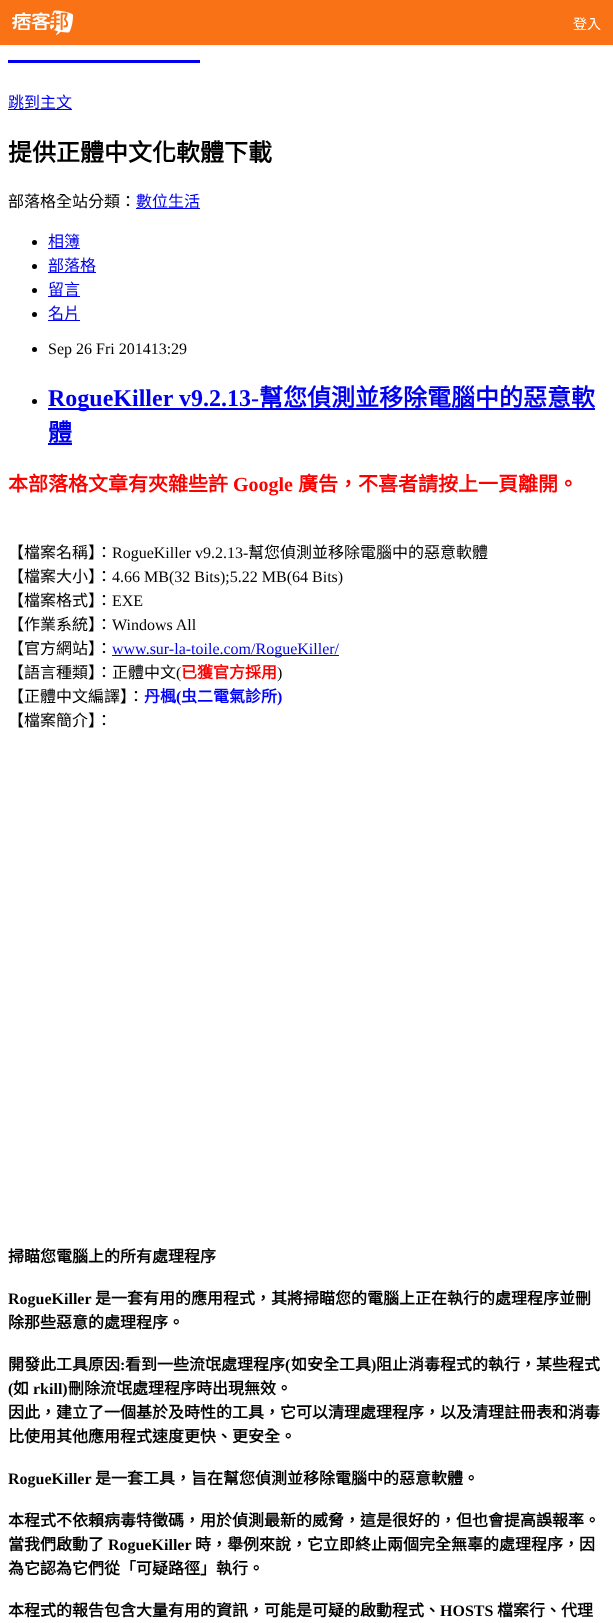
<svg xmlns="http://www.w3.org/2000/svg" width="613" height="1623">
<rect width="100%" height="100%" fill="#fff"/>
<rect y="1" width="613" height="45" fill="#0000000d" filter="blur(1px)"/>
<rect width="613" height="45" fill="#f97316"/>
<image x="12" y="10" width="61" height="25" href="media/1.png"/>
<text x="573" y="29" style="font-family:Noto Sans CJK TC;font-size:14px;fill:#fff">登入</text>
<rect x="8" y="60" width="192" height="3" fill="#00e"/>
<rect x="8" y="109" width="64" height="1" fill="#00e"/>
<text x="8" y="108" style="font-family:Noto Sans CJK TC;font-size:16px;fill:#00e">跳到主文</text>
<text x="8" y="161" style="font-family:Noto Sans CJK TC;font-size:24px;font-weight:bold;fill:#000">提供正體中文化軟體下載</text>
<text x="8" y="207" style="font-family:Noto Sans CJK TC;font-size:16px;fill:#000">部落格全站分類：</text>
<rect x="136" y="208" width="64" height="1" fill="#00e"/>
<text x="136" y="207" style="font-family:Noto Sans CJK TC;font-size:16px;fill:#00e">數位生活</text>
<circle cx="34.5" cy="242.5" r="2.5" fill="#000"/>
<rect x="48" y="248" width="32" height="1" fill="#00e"/>
<text x="48" y="247" style="font-family:Noto Sans CJK TC;font-size:16px;fill:#00e">相簿</text>
<circle cx="34.5" cy="266.5" r="2.5" fill="#000"/>
<rect x="48" y="272" width="48" height="1" fill="#00e"/>
<text x="48" y="271" style="font-family:Noto Sans CJK TC;font-size:16px;fill:#00e">部落格</text>
<circle cx="34.5" cy="290.5" r="2.5" fill="#000"/>
<rect x="48" y="296" width="32" height="1" fill="#00e"/>
<text x="48" y="295" style="font-family:Noto Sans CJK TC;font-size:16px;fill:#00e">留言</text>
<circle cx="34.5" cy="314.5" r="2.5" fill="#000"/>
<rect x="48" y="320" width="32" height="1" fill="#00e"/>
<text x="48" y="319" style="font-family:Noto Sans CJK TC;font-size:16px;fill:#00e">名片</text>
<circle cx="34.5" cy="349.5" r="2.5" fill="#000"/>
<text x="48" y="354" style="font-family:Liberation Serif;font-size:16px;fill:#000">Sep 26 Fri 201413:29</text>
<circle cx="34.5" cy="401.5" r="2.5" fill="#000"/>
<rect x="48" y="408" width="547" height="2" fill="#00e"/>
<text x="48" y="406" style="font-family:Liberation Serif;font-size:24px;font-weight:bold;fill:#00e">RogueKiller v9.2.13-</text>
<text x="259" y="406" style="font-family:Noto Sans CJK TC;font-size:24px;font-weight:bold;fill:#00e">幫您偵測並移除電腦中的惡意軟</text>
<text x="48" y="441" style="font-family:Noto Sans CJK TC;font-size:24px;font-weight:bold;fill:#00e">體</text>
<rect x="48" y="443" width="24" height="2" fill="#00e"/>
<text x="8" y="491" style="font-family:Noto Sans CJK TC;font-size:20px;font-weight:bold;fill:#f00">本部落格文章有夾雜些許</text>
<text x="233" y="491" style="font-family:Liberation Serif;font-size:20px;font-weight:bold;fill:#f00">Google</text>
<text x="298" y="491" style="font-family:Noto Sans CJK TC;font-size:20px;font-weight:bold;fill:#f00">廣告，不喜者請按上一頁離開。</text>
<text x="8" y="558" style="font-family:Noto Sans CJK TC;font-size:16px;fill:#000">【檔案名稱】：</text>
<text x="112" y="558" style="font-family:Liberation Serif;font-size:16px;fill:#000">RogueKiller v9.2.13-</text>
<text x="248" y="558" style="font-family:Noto Sans CJK TC;font-size:16px;fill:#000">幫您偵測並移除電腦中的惡意軟體</text>
<text x="8" y="582" style="font-family:Noto Sans CJK TC;font-size:16px;fill:#000">【檔案大小】：</text>
<text x="112" y="582" style="font-family:Liberation Serif;font-size:16px;fill:#000">4.66 MB(32 Bits);5.22 MB(64 Bits)</text>
<text x="8" y="606" style="font-family:Noto Sans CJK TC;font-size:16px;fill:#000">【檔案格式】：</text>
<text x="112" y="606" style="font-family:Liberation Serif;font-size:16px;fill:#000">EXE</text>
<text x="8" y="630" style="font-family:Noto Sans CJK TC;font-size:16px;fill:#000">【作業系統】：</text>
<text x="112" y="630" style="font-family:Liberation Serif;font-size:16px;fill:#000">Windows All</text>
<text x="8" y="654" style="font-family:Noto Sans CJK TC;font-size:16px;fill:#000">【官方網站】：</text>
<rect x="112" y="655" width="227" height="1" fill="#00e"/>
<text x="112" y="654" style="font-family:Liberation Serif;font-size:16px;fill:#00e">www.sur-la-toile.com/RogueKiller/</text>
<text x="8" y="678" style="font-family:Noto Sans CJK TC;font-size:16px;fill:#000">【語言種類】：正體中文</text>
<text x="176" y="678" style="font-family:Liberation Serif;font-size:16px;fill:#000">(</text>
<text x="181" y="678" style="font-family:Noto Sans CJK TC;font-size:16px;font-weight:bold;fill:#f00">已獲官方採用</text>
<text x="277" y="678" style="font-family:Liberation Serif;font-size:16px;fill:#000">)</text>
<text x="8" y="702" style="font-family:Noto Sans CJK TC;font-size:16px;fill:#000">【正體中文編譯】：</text>
<text x="144" y="702" style="font-family:Noto Sans CJK TC;font-size:16px;font-weight:bold;fill:#00f">丹楓</text>
<text x="176" y="702" style="font-family:Liberation Serif;font-size:16px;font-weight:bold;fill:#00f">(</text>
<text x="181" y="702" style="font-family:Noto Sans CJK TC;font-size:16px;font-weight:bold;fill:#00f">虫二電氣診所</text>
<text x="277" y="702" style="font-family:Liberation Serif;font-size:16px;font-weight:bold;fill:#00f">)</text>
<text x="8" y="726" style="font-family:Noto Sans CJK TC;font-size:16px;fill:#000">【檔案簡介】：</text>
<text x="8" y="1262" style="font-family:Noto Sans CJK TC;font-size:16px;font-weight:bold;fill:#000">掃瞄您電腦上的所有處理程序</text>
<text x="8" y="1304" style="font-family:Liberation Serif;font-size:16px;font-weight:bold;fill:#000">RogueKiller</text>
<text x="95" y="1304" style="font-family:Noto Sans CJK TC;font-size:16px;font-weight:bold;fill:#000">是一套有用的應用程式，其將掃瞄您的電腦上正在執行的處理程序並刪</text>
<text x="8" y="1328" style="font-family:Noto Sans CJK TC;font-size:16px;font-weight:bold;fill:#000">除那些惡意的處理程序。</text>
<text x="8" y="1370" style="font-family:Noto Sans CJK TC;font-size:16px;font-weight:bold;fill:#000">開發此工具原因</text>
<text x="120" y="1370" style="font-family:Liberation Serif;font-size:16px;font-weight:bold;fill:#000">:</text>
<text x="125" y="1370" style="font-family:Noto Sans CJK TC;font-size:16px;font-weight:bold;fill:#000">看到一些流氓處理程序</text>
<text x="285" y="1370" style="font-family:Liberation Serif;font-size:16px;font-weight:bold;fill:#000">(</text>
<text x="291" y="1370" style="font-family:Noto Sans CJK TC;font-size:16px;font-weight:bold;fill:#000">如安全工具</text>
<text x="371" y="1370" style="font-family:Liberation Serif;font-size:16px;font-weight:bold;fill:#000">)</text>
<text x="376" y="1370" style="font-family:Noto Sans CJK TC;font-size:16px;font-weight:bold;fill:#000">阻止消毒程式的執行，某些程式</text>
<text x="8" y="1394" style="font-family:Liberation Serif;font-size:16px;font-weight:bold;fill:#000">(</text>
<text x="13" y="1394" style="font-family:Noto Sans CJK TC;font-size:16px;font-weight:bold;fill:#000">如</text>
<text x="33" y="1394" style="font-family:Liberation Serif;font-size:16px;font-weight:bold;fill:#000">rkill)</text>
<text x="68" y="1394" style="font-family:Noto Sans CJK TC;font-size:16px;font-weight:bold;fill:#000">刪除流氓處理程序時出現無效。</text>
<text x="8" y="1418" style="font-family:Noto Sans CJK TC;font-size:16px;font-weight:bold;fill:#000">因此，建立了一個基於及時性的工具，它可以清理處理程序，以及清理註冊表和消毒</text>
<text x="8" y="1442" style="font-family:Noto Sans CJK TC;font-size:16px;font-weight:bold;fill:#000">比使用其他應用程式速度更快、更安全。</text>
<text x="8" y="1484" style="font-family:Liberation Serif;font-size:16px;font-weight:bold;fill:#000">RogueKiller</text>
<text x="95" y="1484" style="font-family:Noto Sans CJK TC;font-size:16px;font-weight:bold;fill:#000">是一套工具，旨在幫您偵測並移除電腦中的惡意軟體。</text>
<text x="8" y="1526" style="font-family:Noto Sans CJK TC;font-size:16px;font-weight:bold;fill:#000">本程式不依賴病毒特徵碼，用於偵測最新的威脅，這是很好的，但也會提高誤報率。</text>
<text x="8" y="1550" style="font-family:Noto Sans CJK TC;font-size:16px;font-weight:bold;fill:#000">當我們啟動了</text>
<text x="108" y="1550" style="font-family:Liberation Serif;font-size:16px;font-weight:bold;fill:#000">RogueKiller</text>
<text x="195" y="1550" style="font-family:Noto Sans CJK TC;font-size:16px;font-weight:bold;fill:#000">時，舉例來說，它立即終止兩個完全無辜的處理程序，因</text>
<text x="8" y="1574" style="font-family:Noto Sans CJK TC;font-size:16px;font-weight:bold;fill:#000">為它認為它們從「可疑路徑」執行。</text>
<text x="8" y="1616" style="font-family:Noto Sans CJK TC;font-size:16px;font-weight:bold;fill:#000">本程式的報告包含大量有用的資訊，可能是可疑的啟動程式、</text>
<text x="440" y="1616" style="font-family:Liberation Serif;font-size:16px;font-weight:bold;fill:#000">HOSTS</text>
<text x="497" y="1616" style="font-family:Noto Sans CJK TC;font-size:16px;font-weight:bold;fill:#000">檔案行、代理</text>
</svg>
